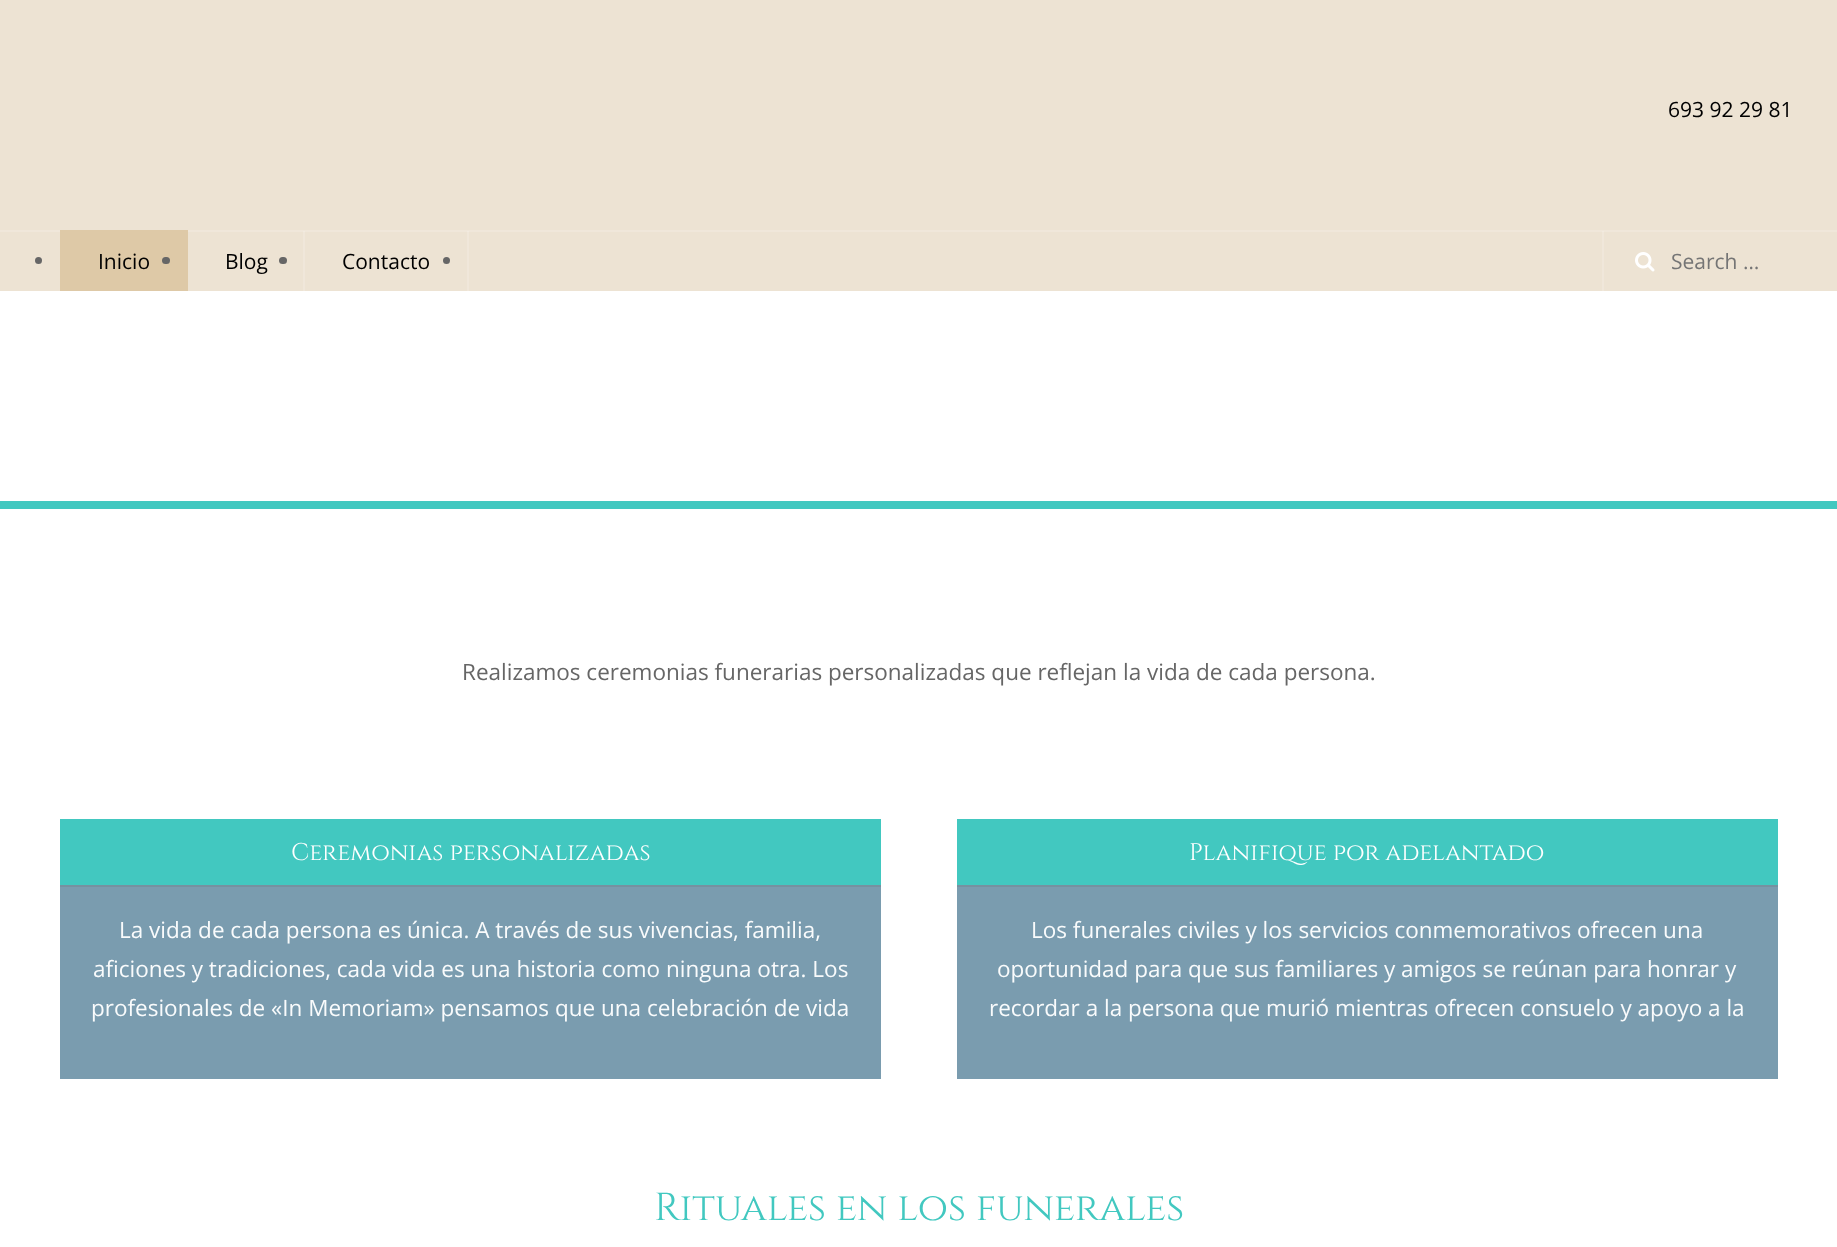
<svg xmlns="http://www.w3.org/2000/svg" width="1837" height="1247">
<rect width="100%" height="100%" fill="#ede3d3"/>
<rect x="1602" y="231" width="2" height="60" fill="#f0e7da"/>
<rect x="467" y="231" width="2" height="60" fill="#f0e7da"/>
<rect x="303" y="231" width="2" height="60" fill="#f0e7da"/>
<text x="1668" y="117" style="font-family:Open Sans;font-size:21px;fill:#000">693 92 29 81</text>
<rect y="230" width="1837" height="2" fill="#f0e7da"/>
<rect x="1602" y="231" width="2" height="1" fill="#f2ebe0"/>
<rect x="467" y="231" width="2" height="1" fill="#f2ebe0"/>
<rect x="303" y="231" width="2" height="1" fill="#f2ebe0"/>
<circle cx="38.5" cy="260.5" r="3.5" fill="#666"/>
<path d="M60 230v1h128v59v-60z" fill="#dec9a7"/>
<rect x="60" y="231" width="128" height="60" fill="#dec9a7"/>
<text x="98" y="269" style="font-family:Open Sans;font-size:21px;fill:#000">Inicio</text>
<rect x="162" y="257" width="8" height="7" rx="3.5" fill="#666"/>
<text x="225" y="269" style="font-family:Open Sans;font-size:21px;fill:#000">Blog</text>
<rect x="279" y="257" width="8" height="7" rx="3.5" fill="#666"/>
<text x="342" y="269" style="font-family:Open Sans;font-size:21px;fill:#000">Contacto</text>
<circle cx="446.5" cy="260.5" r="3.5" fill="#666"/>
<image x="1635" y="252" width="20" height="20" href="media/1.png"/>
<text x="1671" y="269" style="font-family:Open Sans;font-size:21px;fill:#757575">Search …</text>
<rect y="291" width="1837" height="210" fill="#fff"/>
<rect y="501" width="1837" height="8" fill="#42c8c0"/>
<rect y="509" width="1837" height="738" fill="#fff"/>
<text x="462" y="680" style="font-family:Open Sans;font-size:22.5px;fill:#666">Realizamos ceremonias funerarias personalizadas que reflejan la vida de cada persona.</text>
<rect x="60" y="819" width="821" height="66" fill="#42c8c0"/>
<text x="291" y="860" style="font-family:Cinzel;font-size:24px;fill:#fff">Ceremonias personalizadas</text>
<rect x="60" y="887" width="821" height="192" fill="#7a9caf"/>
<rect x="60" y="885" width="821" height="2" fill="#7691a0"/>
<text x="119" y="938" style="font-family:Open Sans;font-size:22.5px;fill:#f9fbfc">La vida de cada persona es única. A través de sus vivencias, familia,</text>
<text x="93" y="977" style="font-family:Open Sans;font-size:22.5px;fill:#f9fbfc">aficiones y tradiciones, cada vida es una historia como ninguna otra. Los</text>
<text x="91" y="1016" style="font-family:Open Sans;font-size:22.5px;fill:#f9fbfc">profesionales de «In Memoriam» pensamos que una celebración de vida</text>
<rect x="957" y="819" width="821" height="66" fill="#42c8c0"/>
<text x="1189" y="860" style="font-family:Cinzel;font-size:24px;fill:#fff">Planifique por adelantado</text>
<rect x="957" y="887" width="821" height="192" fill="#7a9caf"/>
<rect x="957" y="885" width="821" height="2" fill="#7691a0"/>
<text x="1031" y="938" style="font-family:Open Sans;font-size:22.5px;fill:#f9fbfc">Los funerales civiles y los servicios conmemorativos ofrecen una</text>
<text x="997" y="977" style="font-family:Open Sans;font-size:22.5px;fill:#f9fbfc">oportunidad para que sus familiares y amigos se reúnan para honrar y</text>
<text x="989" y="1016" style="font-family:Open Sans;font-size:22.5px;fill:#f9fbfc">recordar a la persona que murió mientras ofrecen consuelo y apoyo a la</text>
<text x="654" y="1220" style="font-family:Cinzel;font-size:39px;fill:#42c8c0">Rituales en los funerales</text>
</svg>
